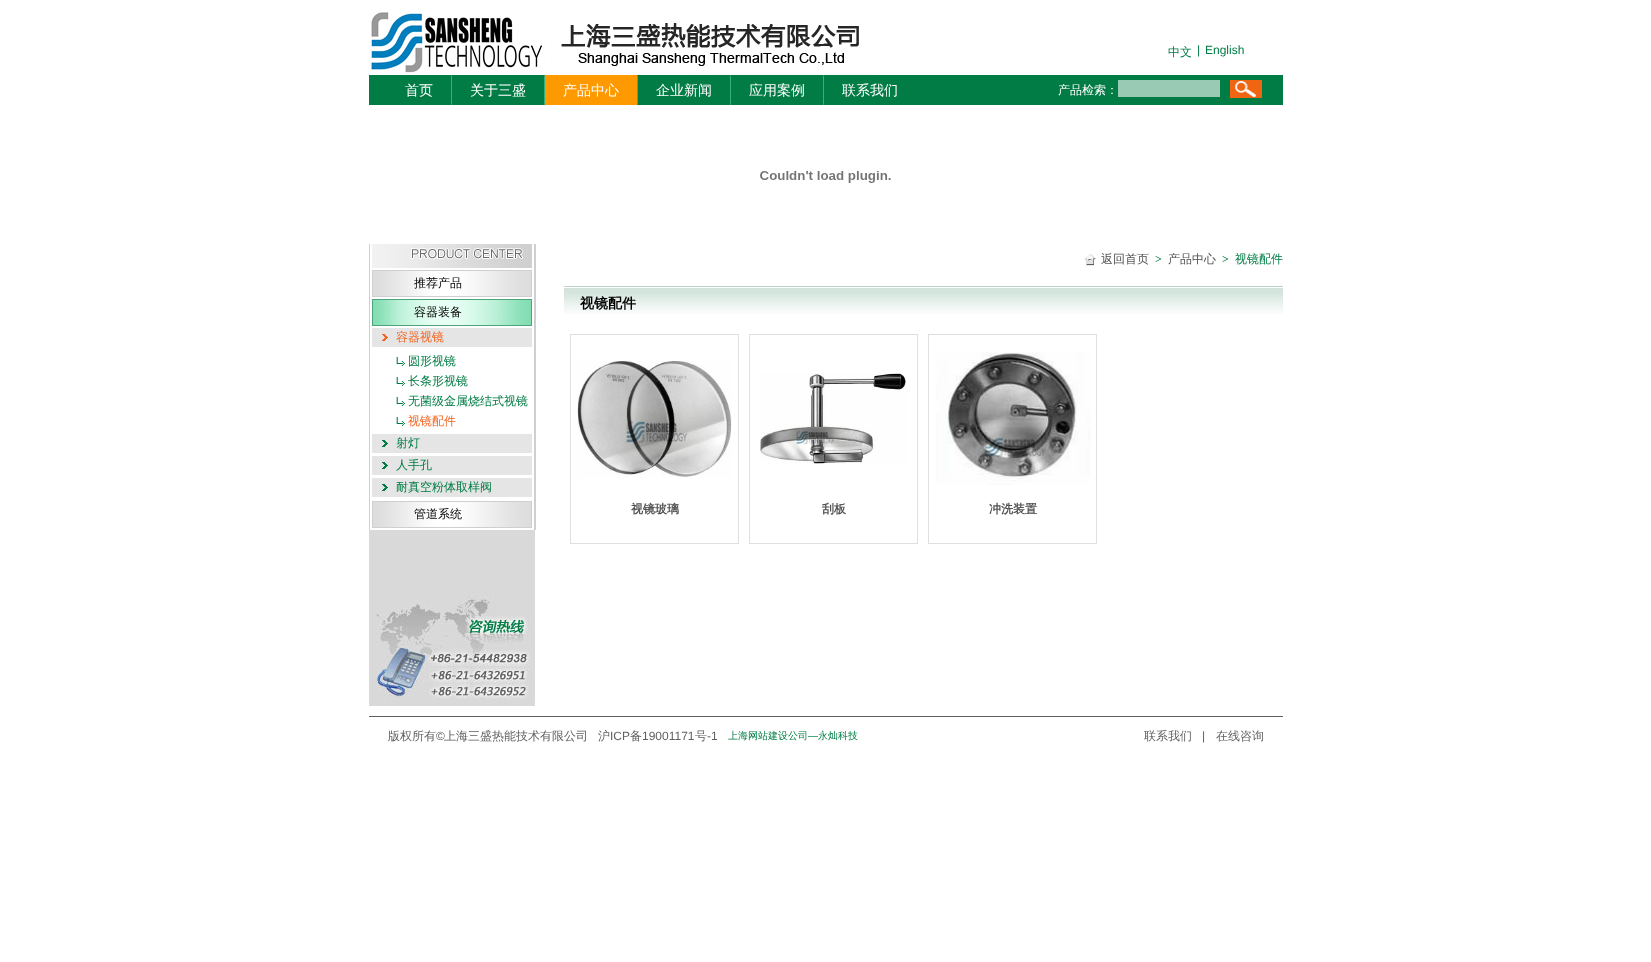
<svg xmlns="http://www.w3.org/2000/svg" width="1651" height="962">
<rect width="100%" height="100%" fill="#fff"/>
<image x="369" y="12" width="510" height="63" href="media/1.png"/>
<text x="1168" y="56" style="font-family:WenQuanYi Zen Hei;font-size:12px;font-weight:500;fill:#007c44">中文</text>
<text x="1197" y="54" style="font-family:Liberation Sans;font-size:12px;fill:#007c44">|</text>
<text x="1205" y="54" style="font-family:Liberation Sans;font-size:12px;fill:#007c44">English</text>
<rect x="369" y="75" width="914" height="30" fill="#017c45"/>
<text x="405" y="95" style="font-family:WenQuanYi Zen Hei;font-size:14px;font-weight:500;fill:#fff">首页</text>
<image x="451" y="75" width="1" height="30" href="media/2.png"/>
<text x="470" y="95" style="font-family:WenQuanYi Zen Hei;font-size:14px;font-weight:500;fill:#fff">关于三盛</text>
<image x="544" y="75" width="1" height="30" href="media/2.png"/>
<rect x="545" y="75" width="92" height="30" fill="#f90"/>
<text x="563" y="95" style="font-family:WenQuanYi Zen Hei;font-size:14px;font-weight:500;fill:#fff">产品中心</text>
<image x="637" y="75" width="1" height="30" href="media/2.png"/>
<text x="656" y="95" style="font-family:WenQuanYi Zen Hei;font-size:14px;font-weight:500;fill:#fff">企业新闻</text>
<image x="730" y="75" width="1" height="30" href="media/2.png"/>
<text x="749" y="95" style="font-family:WenQuanYi Zen Hei;font-size:14px;font-weight:500;fill:#fff">应用案例</text>
<image x="823" y="75" width="1" height="30" href="media/2.png"/>
<text x="842" y="95" style="font-family:WenQuanYi Zen Hei;font-size:14px;font-weight:500;fill:#fff">联系我们</text>
<text x="1058" y="94" style="font-family:WenQuanYi Zen Hei;font-size:12px;font-weight:500;fill:#fff">产品检索：</text>
<rect x="1118" y="80" width="102" height="17" fill="#99cbb4"/>
<image x="1230" y="80" width="32" height="18" href="media/3.png"/>
<image x="760" y="171" width="131" height="12" href="media/4.png"/>
<rect x="369" y="530" width="166" height="176" fill="#d9d9d9"/>
<image x="369" y="244" width="167" height="286" href="media/5.png"/>
<image x="372" y="244" width="160" height="24" href="media/6.png"/>
<image x="372" y="270" width="160" height="27" href="media/7.png"/>
<text x="414" y="287" style="font-family:WenQuanYi Zen Hei;font-size:12px;font-weight:500;fill:#000">推荐产品</text>
<image x="372" y="299" width="160" height="27" href="media/8.png"/>
<text x="414" y="316" style="font-family:WenQuanYi Zen Hei;font-size:12px;font-weight:500;fill:#000">容器装备</text>
<image x="372" y="328" width="160" height="19" href="media/9.png"/>
<text x="396" y="341" style="font-family:WenQuanYi Zen Hei;font-size:12px;font-weight:500;fill:#f26521">容器视镜</text>
<image x="396" y="357" width="9" height="9" href="media/10.png"/>
<text x="408" y="365" style="font-family:WenQuanYi Zen Hei;font-size:12px;font-weight:500;fill:#007c44">圆形视镜</text>
<image x="396" y="377" width="9" height="9" href="media/10.png"/>
<text x="408" y="385" style="font-family:WenQuanYi Zen Hei;font-size:12px;font-weight:500;fill:#007c44">长条形视镜</text>
<image x="396" y="397" width="9" height="9" href="media/10.png"/>
<text x="408" y="405" style="font-family:WenQuanYi Zen Hei;font-size:12px;font-weight:500;fill:#007c44">无菌级金属烧结式视镜</text>
<image x="396" y="417" width="9" height="9" href="media/10.png"/>
<text x="408" y="425" style="font-family:WenQuanYi Zen Hei;font-size:12px;font-weight:500;fill:#f26521">视镜配件</text>
<image x="372" y="434" width="160" height="19" href="media/11.png"/>
<text x="396" y="447" style="font-family:WenQuanYi Zen Hei;font-size:12px;font-weight:500;fill:#007c44">射灯</text>
<image x="372" y="456" width="160" height="19" href="media/11.png"/>
<text x="396" y="469" style="font-family:WenQuanYi Zen Hei;font-size:12px;font-weight:500;fill:#007c44">人手孔</text>
<image x="372" y="478" width="160" height="19" href="media/11.png"/>
<text x="396" y="491" style="font-family:WenQuanYi Zen Hei;font-size:12px;font-weight:500;fill:#007c44">耐真空粉体取样阀</text>
<image x="372" y="501" width="160" height="27" href="media/7.png"/>
<text x="414" y="518" style="font-family:WenQuanYi Zen Hei;font-size:12px;font-weight:500;fill:#000">管道系统</text>
<text x="1101" y="263" style="font-family:WenQuanYi Zen Hei;font-size:12px;font-weight:500;fill:#505050">返回首页</text>
<image x="1084" y="253" width="17" height="13" href="media/12.png"/>
<text x="1155" y="263" style="font-family:Liberation Serif;font-size:12px;font-weight:bold;fill:#007c44">&gt;</text>
<text x="1168" y="263" style="font-family:WenQuanYi Zen Hei;font-size:12px;font-weight:500;fill:#505050">产品中心</text>
<text x="1222" y="263" style="font-family:Liberation Serif;font-size:12px;font-weight:bold;fill:#007c44">&gt;</text>
<text x="1235" y="263" style="font-family:WenQuanYi Zen Hei;font-size:12px;font-weight:500;fill:#007c44">视镜配件</text>
<image x="564" y="286" width="719" height="28" href="media/13.png"/>
<text x="580" y="308" style="font-family:WenQuanYi Zen Hei;font-size:14px;font-weight:bold;fill:#000">视镜配件</text>
<rect x="570.5" y="334.5" width="168" height="209" fill="none" stroke="#dfdfdf"/>
<image x="577" y="361" width="155" height="117" href="media/14.png"/>
<text x="631" y="513" style="font-family:WenQuanYi Zen Hei;font-size:12px;font-weight:bold;fill:#505050">视镜玻璃</text>
<rect x="749.5" y="334.5" width="168" height="209" fill="none" stroke="#dfdfdf"/>
<image x="760" y="373" width="146" height="91" href="media/15.png"/>
<text x="822" y="513" style="font-family:WenQuanYi Zen Hei;font-size:12px;font-weight:bold;fill:#505050">刮板</text>
<rect x="928.5" y="334.5" width="168" height="209" fill="none" stroke="#dfdfdf"/>
<image x="936" y="352" width="155" height="133" href="media/16.png"/>
<text x="989" y="513" style="font-family:WenQuanYi Zen Hei;font-size:12px;font-weight:bold;fill:#505050">冲洗装置</text>
<rect x="369" y="716" width="914" height="1" fill="#5f5f5f"/>
<image x="376" y="595" width="154" height="104" href="media/17.png"/>
<text x="388" y="740" style="font-family:WenQuanYi Zen Hei;font-size:12px;font-weight:500;fill:#5f5f5f">版权所有</text>
<text x="436" y="740" style="font-family:Liberation Sans;font-size:12px;fill:#5f5f5f">©</text>
<text x="444" y="740" style="font-family:WenQuanYi Zen Hei;font-size:12px;font-weight:500;fill:#5f5f5f">上海三盛热能技术有限公司</text>
<text x="598" y="740" style="font-family:WenQuanYi Zen Hei;font-size:12px;font-weight:500;fill:#5f5f5f">沪</text>
<text x="610" y="740" style="font-family:Liberation Sans;font-size:12px;fill:#5f5f5f">ICP</text>
<text x="630" y="740" style="font-family:WenQuanYi Zen Hei;font-size:12px;font-weight:500;fill:#5f5f5f">备</text>
<text x="642" y="740" style="font-family:Liberation Sans;font-size:12px;fill:#5f5f5f">19001171</text>
<text x="695" y="740" style="font-family:WenQuanYi Zen Hei;font-size:12px;font-weight:500;fill:#5f5f5f">号</text>
<text x="707" y="740" style="font-family:Liberation Sans;font-size:12px;fill:#5f5f5f">-1</text>
<text x="728" y="739" style="font-family:WenQuanYi Zen Hei;font-size:10px;font-weight:500;fill:#007c44">上海网站建设公司</text>
<text x="808" y="739" style="font-family:Liberation Sans;font-size:10px;fill:#007c44">—</text>
<text x="818" y="739" style="font-family:WenQuanYi Zen Hei;font-size:10px;font-weight:500;fill:#007c44">永灿科技</text>
<text x="1144" y="740" style="font-family:WenQuanYi Zen Hei;font-size:12px;font-weight:500;fill:#5f5f5f">联系我们</text>
<text x="1202" y="740" style="font-family:Liberation Sans;font-size:12px;fill:#5f5f5f">|</text>
<text x="1216" y="740" style="font-family:WenQuanYi Zen Hei;font-size:12px;font-weight:500;fill:#5f5f5f">在线咨询</text>
</svg>
